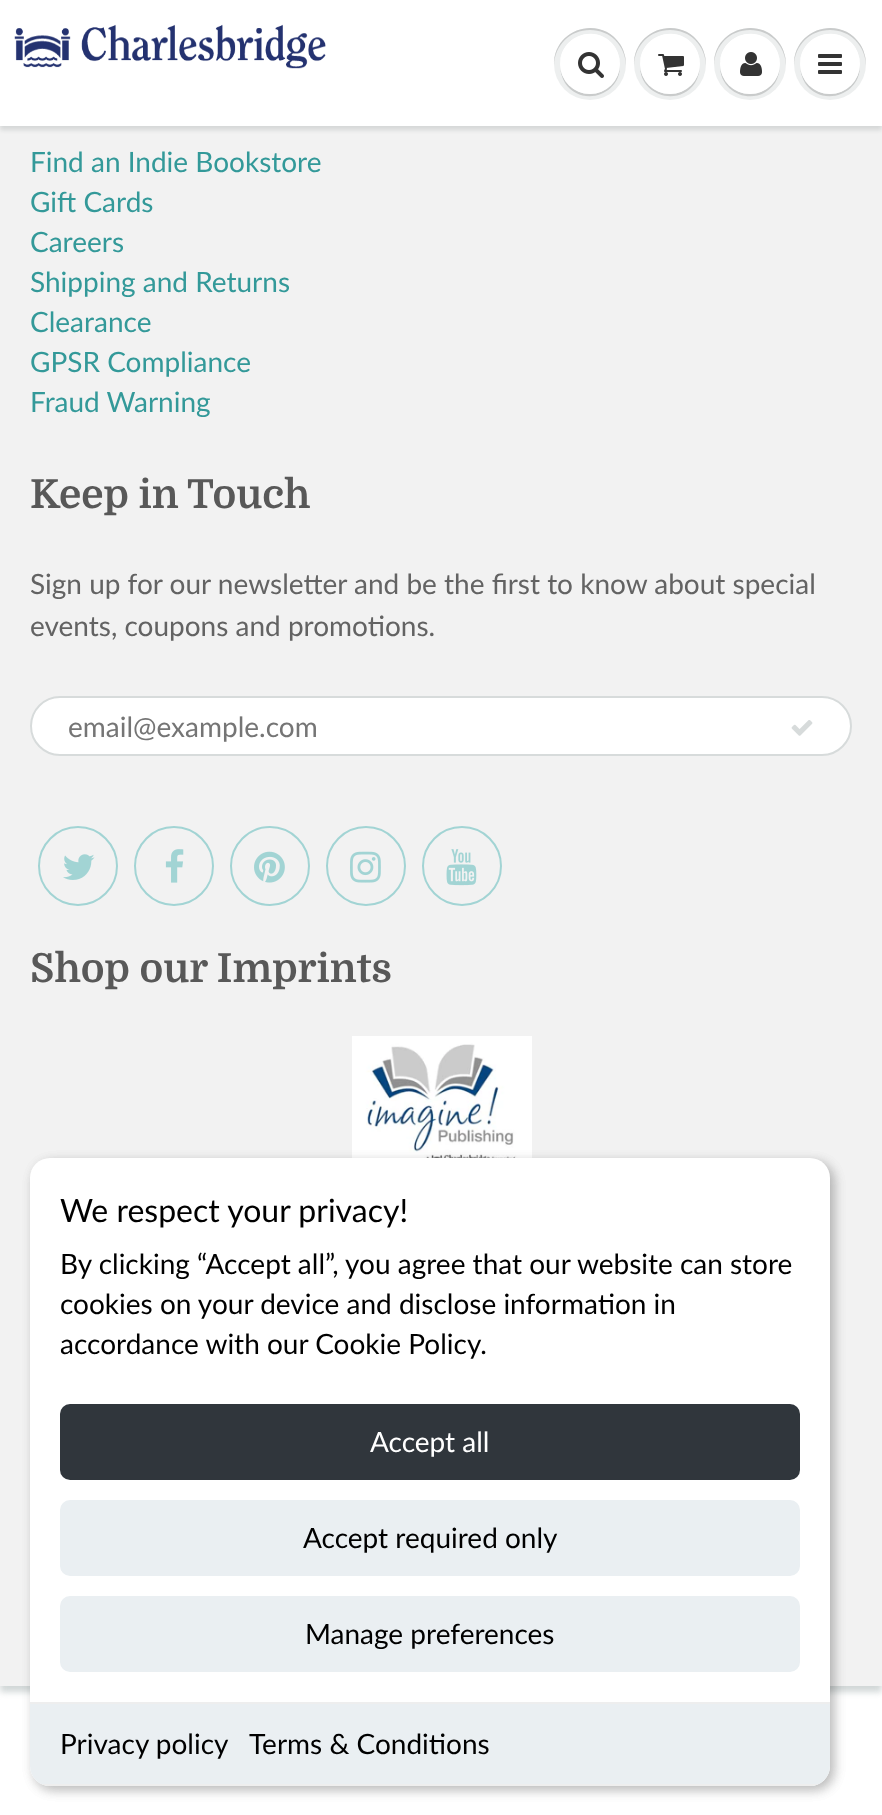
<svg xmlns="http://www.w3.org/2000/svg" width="882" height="1815">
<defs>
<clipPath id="clip1"><rect x="30" y="1158" width="800" height="628" rx="20"/></clipPath>
</defs>
<rect width="100%" height="100%" fill="#fff"/>
<rect y="-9" width="882" height="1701" fill="#d1d7d7" filter="blur(3px)"/>
<rect y="126" width="882" height="1560" fill="#f2f2f2"/>
<rect y="4" width="882" height="126" fill="#0b191c1f" filter="blur(2px)"/>
<rect width="882" height="126" fill="#fff"/>
<image x="14" y="24" width="312" height="45" href="media/1.png"/>
<circle cx="590" cy="64" r="36" fill="#edefef"/>
<path d="M560 65c0 6 2 13 5 18c17 25 56 12 55-18c-1 16-14 29-30 29c-16 0-29-13-30-29z" fill="#c9cbcb"/>
<path d="M590 30c20 0 35 15 36 35c0-7-2-15-6-21c-20-30-67-15-66 21c1-20 16-35 36-35z" fill="#c9cbcb"/>
<circle cx="590" cy="64" r="30" fill="#fff"/>
<path d="M590 36c17 0 29 12 30 29c0-6-2-13-5-18c-17-25-56-12-55 18c1-17 13-29 30-29z" fill="#fff"/>
<image x="578" y="52" width="26" height="26" href="media/2.png"/>
<circle cx="670" cy="64" r="36" fill="#edefef"/>
<path d="M640 65c-1 30 38 43 55 18c3-5 5-12 5-18c-1 16-14 29-30 29c-16 0-29-13-30-29z" fill="#c9cbcb"/>
<path d="M670 30c20 0 35 15 36 35c0-7-2-15-6-21c-20-30-67-15-66 21c1-20 16-35 36-35z" fill="#c9cbcb"/>
<circle cx="670" cy="64" r="30" fill="#fff"/>
<path d="M670 36c17 0 29 12 30 29c0-6-2-13-5-18c-17-25-56-12-55 18c1-17 13-29 30-29z" fill="#fff"/>
<image x="658" y="54" width="26" height="22" href="media/3.png"/>
<circle cx="750" cy="64" r="36" fill="#edefef"/>
<path d="M720 65c-1 30 38 43 55 18c3-5 5-12 5-18c-1 16-14 29-30 29c-16 0-29-13-30-29z" fill="#c9cbcb"/>
<path d="M750 30c20 0 35 15 36 35c0-7-2-15-6-21c-20-30-67-15-66 21c1-20 16-35 36-35z" fill="#c9cbcb"/>
<circle cx="750" cy="64" r="30" fill="#fff"/>
<path d="M750 36c17 0 29 12 30 29c0-6-2-13-5-18c-17-25-56-12-55 18c1-17 13-29 30-29z" fill="#fff"/>
<image x="740" y="52" width="22" height="24" href="media/4.png"/>
<circle cx="830" cy="64" r="36" fill="#edefef"/>
<path d="M800 65c0 6 2 13 5 18c17 25 56 12 55-18c-1 16-14 29-30 29c-16 0-29-13-30-29z" fill="#c9cbcb"/>
<path d="M830 30c20 0 35 15 36 35c0-7-2-15-6-21c-20-30-67-15-66 21c1-20 16-35 36-35z" fill="#c9cbcb"/>
<circle cx="830" cy="64" r="30" fill="#fff"/>
<path d="M830 36c17 0 29 12 30 29c0-6-2-13-5-18c-17-25-56-12-55 18c1-17 13-29 30-29z" fill="#fff"/>
<image x="818" y="54" width="24" height="20" href="media/5.png"/>
<text x="30" y="172" style="font-family:Lato;font-size:28px;fill:#399">Find an Indie Bookstore</text>
<text x="30" y="212" style="font-family:Lato;font-size:28px;fill:#399">Gift Cards</text>
<text x="30" y="252" style="font-family:Lato;font-size:28px;fill:#399">Careers</text>
<text x="30" y="292" style="font-family:Lato;font-size:28px;fill:#399">Shipping and Returns</text>
<text x="30" y="332" style="font-family:Lato;font-size:28px;fill:#399">Clearance</text>
<text x="30" y="372" style="font-family:Lato;font-size:28px;fill:#399">GPSR Compliance</text>
<text x="30" y="412" style="font-family:Lato;font-size:28px;fill:#399">Fraud Warning</text>
<text x="30" y="508" style="font-family:Domine;font-size:40px;font-weight:bold;fill:#585858">Keep in Touch</text>
<text x="30" y="594" style="font-family:Lato;font-size:28px;fill:#636363">Sign up for our newsletter and be the first to know about special</text>
<text x="30" y="636" style="font-family:Lato;font-size:28px;fill:#636363">events, coupons and promotions.</text>
<rect x="31" y="697" width="820" height="58" rx="29" fill="#fff" stroke="#d7dbdb" stroke-width="2"/>
<text x="68" y="737" style="font-family:Lato;font-size:28px;fill:#757575">email@example.com</text>
<image x="791" y="720" width="22" height="16" href="media/6.png"/>
<circle cx="78" cy="866" r="39" fill="none" stroke="#a2d4d4" stroke-width="2"/>
<image x="63" y="854" width="32" height="26" href="media/7.png"/>
<circle cx="174" cy="866" r="39" fill="none" stroke="#a2d4d4" stroke-width="2"/>
<image x="165" y="849" width="19" height="34" href="media/8.png"/>
<circle cx="270" cy="866" r="39" fill="none" stroke="#a2d4d4" stroke-width="2"/>
<image x="254" y="851" width="31" height="32" href="media/9.png"/>
<circle cx="366" cy="866" r="39" fill="none" stroke="#a2d4d4" stroke-width="2"/>
<image x="350" y="851" width="31" height="32" href="media/10.png"/>
<circle cx="462" cy="866" r="39" fill="none" stroke="#a2d4d4" stroke-width="2"/>
<image x="446" y="849" width="31" height="37" href="media/11.png"/>
<text x="30" y="982" style="font-family:Domine;font-size:40px;font-weight:bold;fill:#585858">Shop our Imprints</text>
<image x="352" y="1036" width="180" height="122" href="media/12.png"/>
<rect x="34" y="1162" width="800" height="628" rx="20" fill="#00000026" filter="blur(6px)"/>
<rect x="34" y="1162" width="800" height="628" rx="20" fill="#00000026" filter="blur(6px)"/>
<rect x="30" y="1158" width="800" height="628" rx="20" fill="#fff"/>
<text x="60" y="1222" style="font-family:Lato;font-size:32px;fill:#000">We respect your privacy!</text>
<text x="60" y="1274" style="font-family:Lato;font-size:28px;fill:#000">By clicking “Accept all”, you agree that our website can store</text>
<text x="60" y="1314" style="font-family:Lato;font-size:28px;fill:#000">cookies on your device and disclose information in</text>
<text x="60" y="1354" style="font-family:Lato;font-size:28px;fill:#000">accordance with our Cookie Policy.</text>
<rect x="60" y="1404" width="740" height="76" rx="10" fill="#30363c"/>
<text x="370" y="1452" style="font-family:Lato;font-size:28px;fill:#fff">Accept all</text>
<rect x="60" y="1500" width="740" height="76" rx="10" fill="#eaeff2"/>
<text x="303" y="1548" style="font-family:Lato;font-size:28px;fill:#000">Accept required only</text>
<rect x="60" y="1596" width="740" height="76" rx="10" fill="#eaeff2"/>
<text x="305" y="1644" style="font-family:Lato;font-size:28px;fill:#000">Manage preferences</text>
<path d="M30 1702h800v64c0 11-9 20-20 20h-760c-11 0-20-9-20-20z" fill="#eaeff2"/>
<rect x="30" y="1702" width="800" height="2" fill="#eee"/>
<g clip-path="url(#clip1)">
<rect x="41" y="1784" width="778" height="2" fill="#eee"/>
</g>
<text x="60" y="1754" style="font-family:Lato;font-size:28px;fill:#000">Privacy policy</text>
<text x="249" y="1754" style="font-family:Lato;font-size:28px;fill:#000">Terms &amp; Conditions</text>
</svg>
